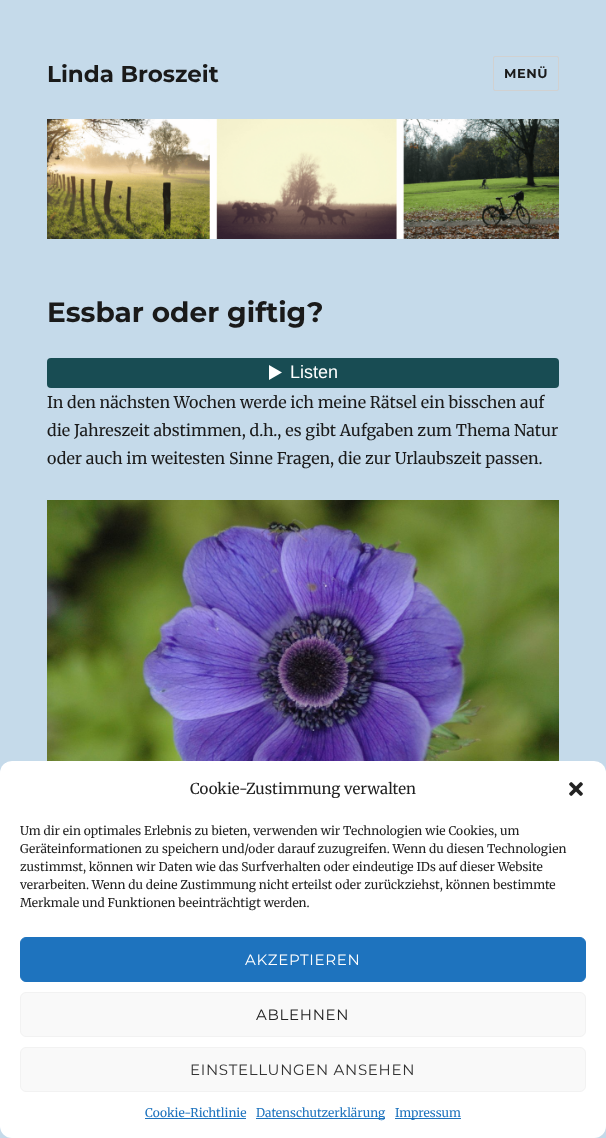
<svg xmlns="http://www.w3.org/2000/svg" width="606" height="1138">
<rect width="100%" height="100%" fill="#c5daea"/>
<text x="47" y="82" style="font-family:Montserrat;font-size:23px;font-weight:bold;fill:#1a1a1a">Linda Broszeit</text>
<rect x="493.5" y="56.5" width="65" height="34" rx="1.5" fill="none" stroke="#d1d1d1"/>
<text x="504" y="78" style="font-family:Montserrat;font-size:13px;font-weight:bold;letter-spacing:0.5px;fill:#1a1a1a">MENÜ</text>
<image x="47" y="119" width="512" height="120" href="media/1.png"/>
<text x="47" y="322" style="font-family:Montserrat;font-size:28px;font-weight:bold;fill:#1a1a1a">Essbar oder giftig?</text>
<rect x="47" y="358" width="512" height="30" rx="4" fill="#184c53"/>
<path d="M269 365v15l13-7.5z" fill="#fff"/>
<text x="290" y="378" style="font-family:Liberation Sans;font-size:18px;fill:#fff">Listen</text>
<text x="47" y="408" style="font-family:Merriweather;font-size:16px;fill:#1a1a1a">In den nächsten Wochen werde ich meine Rätsel ein bisschen auf</text>
<text x="47" y="436" style="font-family:Merriweather;font-size:16px;fill:#1a1a1a">die Jahreszeit abstimmen, d.h., es gibt Aufgaben zum Thema Natur</text>
<text x="47" y="464" style="font-family:Merriweather;font-size:16px;fill:#1a1a1a">oder auch im weitesten Sinne Fragen, die zur Urlaubszeit passen.</text>
<image x="47" y="500" width="512" height="261" href="media/2.png"/>
<rect y="761" width="606" height="377" rx="12" fill="#fff"/>
<text x="190" y="794" style="font-family:Merriweather;font-size:15px;fill:#222">Cookie-Zustimmung verwalten</text>
<image x="569" y="782" width="14" height="14" href="media/3.png"/>
<text x="20" y="835" style="font-family:Merriweather;font-size:12px;fill:#222">Um dir ein optimales Erlebnis zu bieten, verwenden wir Technologien wie Cookies, um</text>
<text x="20" y="853" style="font-family:Merriweather;font-size:12px;fill:#222">Geräteinformationen zu speichern und/oder darauf zuzugreifen. Wenn du diesen Technologien</text>
<text x="20" y="871" style="font-family:Merriweather;font-size:12px;fill:#222">zustimmst, können wir Daten wie das Surfverhalten oder eindeutige IDs auf dieser Website</text>
<text x="20" y="889" style="font-family:Merriweather;font-size:12px;fill:#222">verarbeiten. Wenn du deine Zustimmung nicht erteilst oder zurückziehst, können bestimmte</text>
<text x="20" y="907" style="font-family:Merriweather;font-size:12px;fill:#222">Merkmale und Funktionen beeinträchtigt werden.</text>
<rect x="20.5" y="937.5" width="565" height="44" rx="5.5" fill="#1e73be" stroke="#1e73be"/>
<text x="245" y="965" style="font-family:Montserrat;font-size:15px;letter-spacing:0.7px;fill:#fff">AKZEPTIEREN</text>
<rect x="20.5" y="992.5" width="565" height="44" rx="5.5" fill="#f9f9f9" stroke="#f2f2f2"/>
<text x="256" y="1020" style="font-family:Montserrat;font-size:15px;letter-spacing:0.7px;fill:#222">ABLEHNEN</text>
<rect x="20.5" y="1047.5" width="565" height="44" rx="5.5" fill="#f9f9f9" stroke="#f2f2f2"/>
<text x="190" y="1075" style="font-family:Montserrat;font-size:15px;letter-spacing:0.7px;fill:#333">EINSTELLUNGEN ANSEHEN</text>
<text x="145" y="1117" style="font-family:Merriweather;font-size:12px;fill:#1e73be">Cookie-Richtlinie</text>
<rect x="145" y="1118" width="101" height="1" fill="#1e73be"/>
<rect x="256" y="1118" width="129" height="1" fill="#1e73be"/>
<text x="256" y="1117" style="font-family:Merriweather;font-size:12px;fill:#1e73be">Datenschutzerklärung</text>
<rect x="395" y="1118" width="66" height="1" fill="#1e73be"/>
<text x="395" y="1117" style="font-family:Merriweather;font-size:12px;fill:#1e73be">Impressum</text>
</svg>
